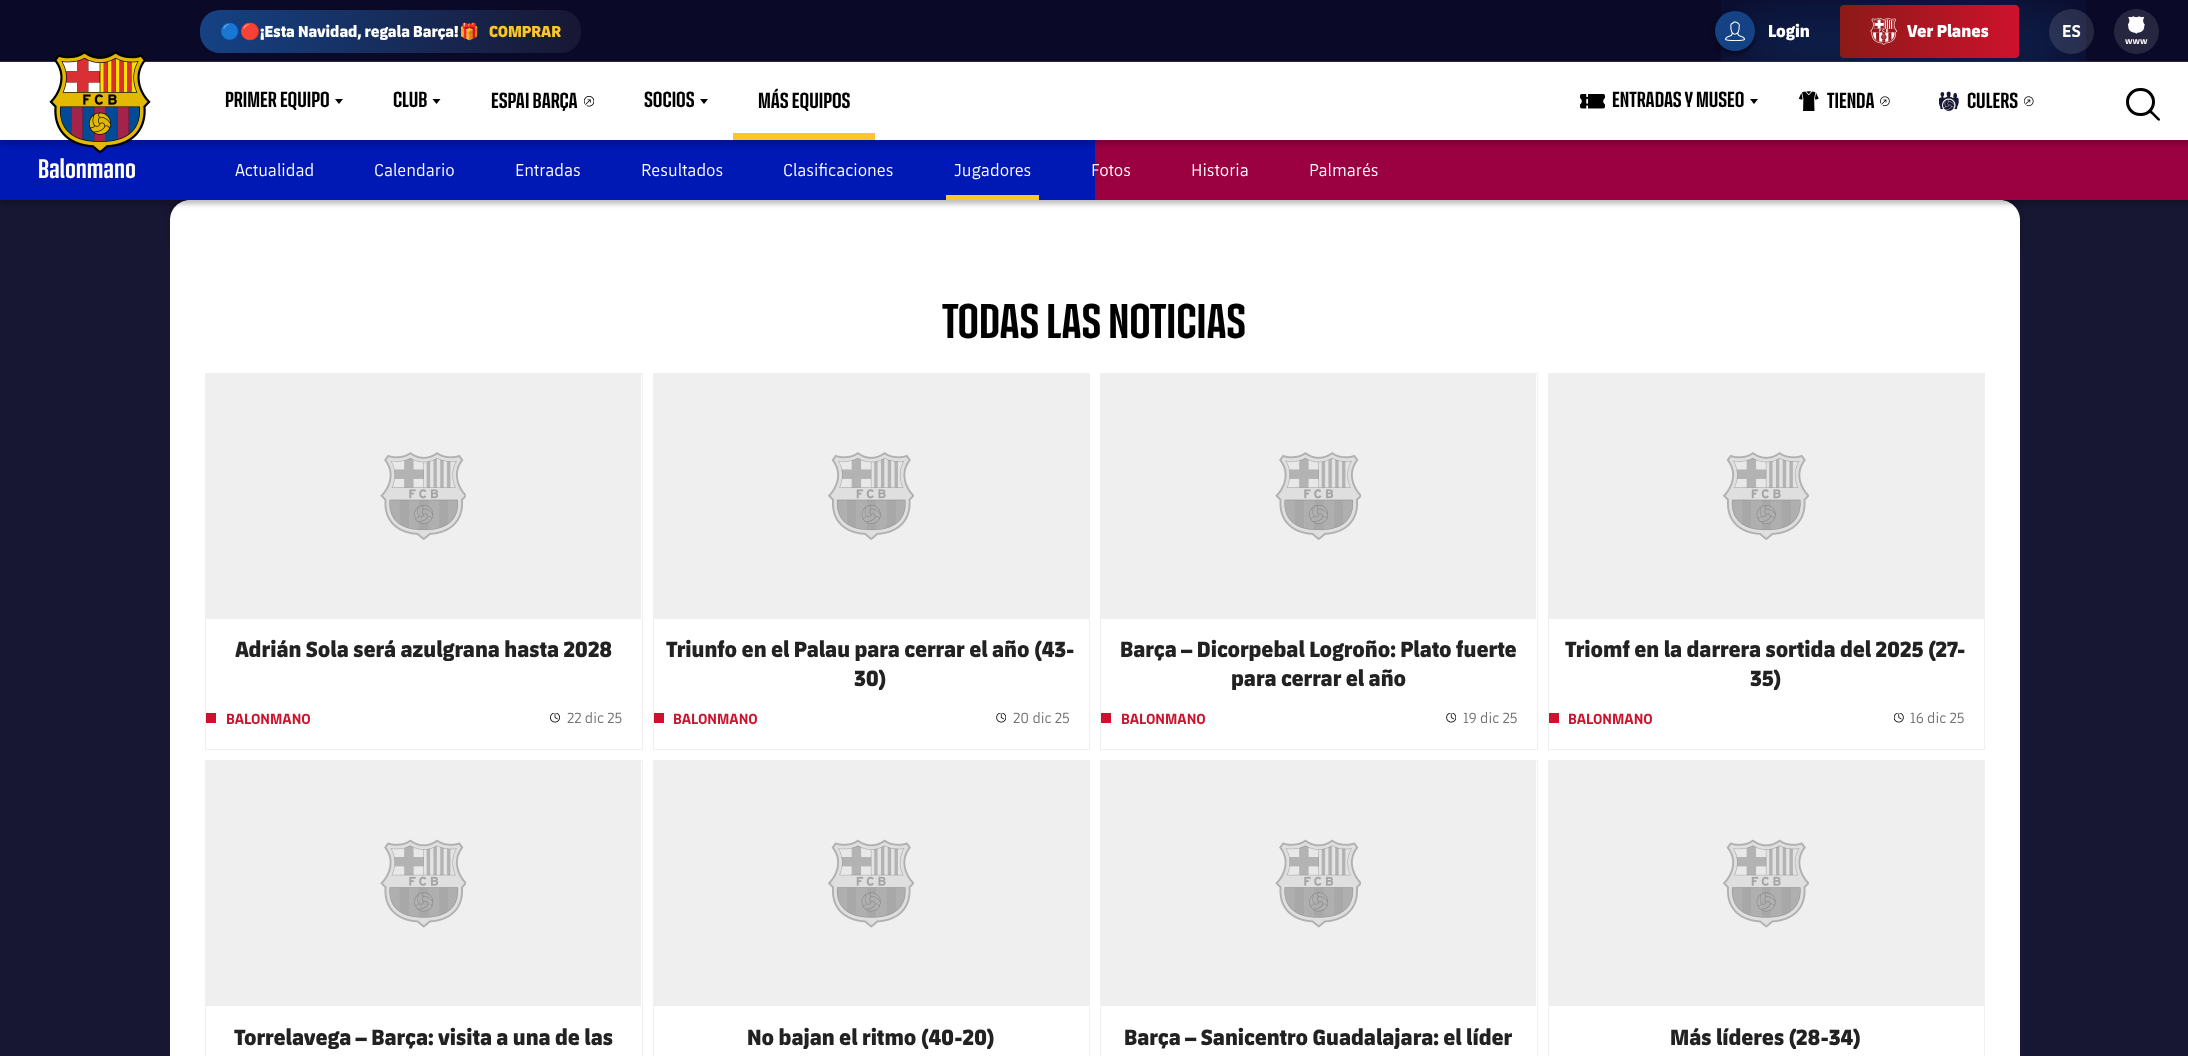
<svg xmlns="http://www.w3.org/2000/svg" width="2188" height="1056">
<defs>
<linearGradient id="g1" gradientUnits="userSpaceOnUse" x1="200" y1="31" x2="581" y2="31"><stop offset="0" stop-color="#154284"/><stop offset="1" stop-color="#181733"/></linearGradient>
<clipPath id="clip1"><rect x="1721" y="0" width="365" height="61"/></clipPath>
<linearGradient id="g2" gradientUnits="userSpaceOnUse" x1="1840" y1="31" x2="2019" y2="31"><stop offset="0" stop-color="#8c1a17"/><stop offset="1" stop-color="#cd122d"/></linearGradient>
</defs>
<rect width="100%" height="100%" fill="#181733"/>
<rect width="2188" height="61" fill="#0a0927"/>
<rect x="200" y="10" width="381" height="43" rx="20" fill="url(#g1)"/>
<text x="220" y="37" style="font-family:Noto Color Emoji;font-size:16.25px;font-weight:bold;fill:#fff">🔵🔴</text>
<text x="260" y="37" style="font-family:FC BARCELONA;font-size:16.25px;font-weight:800;fill:#fff">¡Esta Navidad, regala Barça!</text>
<text x="459" y="37" style="font-family:Noto Color Emoji;font-size:16.25px;font-weight:bold;fill:#fff">🎁</text>
<text x="489" y="37" style="font-family:FC BARCELONA;font-size:16.25px;font-weight:800;fill:#fdc52c">COMPRAR</text>
<rect x="170" y="195" width="1850" height="60" rx="20" fill="#00000033" filter="blur(2.5px)"/>
<path d="M190 200h1810c11 0 20 9 20 20v40h-1850v-40c0-11 9-20 20-20z" fill="#fff"/>
<rect y="144" width="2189" height="60" fill="#00000040" filter="blur(2.5px)"/>
<rect y="140" width="1095" height="60" fill="#0018b4"/>
<rect x="1095" y="140" width="1093" height="60" fill="#9b0041"/>
<rect y="139" width="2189" height="5" fill="#00000040" filter="blur(2.5px)"/>
<rect y="62" width="2188" height="78" fill="#fff"/>
<rect y="61" width="2188" height="1" fill="#29283d"/>
<path d="M1754 104l4-5h-8z" fill="#000"/>
<image x="1799" y="91" width="20" height="20" href="media/7.png"/>
<image x="1880" y="96" width="10" height="11" href="media/8.png"/>
<image x="1939" y="91" width="20" height="20" href="media/9.png"/>
<image x="2024" y="96" width="10" height="11" href="media/10.png"/>
<rect x="2127.5" y="89.5" width="26" height="25" rx="12.5" fill="none" stroke="#000" stroke-width="3"/>
<path d="M2151 110l9 9v1c-1 2-3-.5-3.5-1l-4.5-4.5c-.5-.5-4.5-3-3-4.5c.5-.5 1.5-.5 2 0z" fill="#000"/>
<g clip-path="url(#clip1)">
<rect x="1721" y="29" width="365" height="32" rx="16" fill="#154284" filter="blur(37.5px)"/>
</g>
<rect x="1715" y="14" width="40" height="40" rx="20" fill="#00000080" filter="blur(2.5px)"/>
<circle cx="1735" cy="31" r="20" fill="#154284"/>
<image x="1725" y="21" width="20" height="20" href="media/1.png"/>
<text x="1768" y="37" style="font-family:FC BARCELONA;font-size:17.5px;font-weight:800;fill:#fff">Login</text>
<rect x="1840" y="5" width="179" height="53" rx="4" fill="url(#g2)"/>
<image x="1870" y="18" width="28" height="27" href="media/2.png"/>
<text x="1907" y="37" style="font-family:FC BARCELONA;font-size:17.5px;font-weight:800;fill:#fff">Ver Planes</text>
<circle cx="2071.5" cy="31.5" r="22.5" fill="#ffffff1f"/>
<text x="2062" y="37" style="font-family:FC BARCELONA;font-size:17.5px;font-weight:bold;fill:#fff">ES</text>
<circle cx="2136.5" cy="31.5" r="22.5" fill="#ffffff1f"/>
<image x="2128" y="16" width="17" height="18" href="media/3.png"/>
<text x="2125" y="44" style="font-family:FC BARCELONA;font-size:9px;font-weight:bold;fill:#fff">www</text>
<image x="49" y="51" width="102" height="103" href="media/4.png"/>
<text x="225" y="107" style="font-family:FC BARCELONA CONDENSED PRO;font-size:22.5px;font-weight:bold;fill:#000">PRIMER EQUIPO</text>
<path d="M339 104l4-5h-8z" fill="#000"/>
<text x="393" y="107" style="font-family:FC BARCELONA CONDENSED PRO;font-size:22.5px;font-weight:bold;fill:#000">CLUB</text>
<path d="M436.5 104l4-5h-8z" fill="#000"/>
<text x="491" y="108" style="font-family:FC BARCELONA CONDENSED PRO;font-size:22.5px;font-weight:bold;fill:#000">ESPAI BARÇA</text>
<image x="584" y="95" width="10" height="12" href="media/5.png"/>
<text x="644" y="107" style="font-family:FC BARCELONA CONDENSED PRO;font-size:22.5px;font-weight:bold;fill:#000">SOCIOS</text>
<path d="M704 104l4-5h-8z" fill="#000"/>
<rect x="733" y="133" width="142" height="7" fill="#fdc52c"/>
<text x="758" y="108" style="font-family:FC BARCELONA CONDENSED PRO;font-size:22.5px;font-weight:bold;fill:#000">MÁS EQUIPOS</text>
<image x="1580" y="94" width="25" height="15" href="media/6.png"/>
<text x="1612" y="107" style="font-family:FC BARCELONA CONDENSED PRO;font-size:22.5px;font-weight:bold;fill:#000">ENTRADAS Y MUSEO</text>
<text x="1827" y="108" style="font-family:FC BARCELONA CONDENSED PRO;font-size:22.5px;font-weight:bold;fill:#000">TIENDA</text>
<text x="1967" y="108" style="font-family:FC BARCELONA CONDENSED PRO;font-size:22.5px;font-weight:bold;fill:#000">CULERS</text>
<text x="38" y="178" style="font-family:FC BARCELONA CONDENSED PRO;font-size:27.5px;font-weight:bold;fill:#fff">Balonmano</text>
<text x="235" y="176" style="font-family:FC BARCELONA;font-size:17.5px;fill:#fff">Actualidad</text>
<text x="374" y="176" style="font-family:FC BARCELONA;font-size:17.5px;fill:#fff">Calendario</text>
<text x="515" y="176" style="font-family:FC BARCELONA;font-size:17.5px;fill:#fff">Entradas</text>
<text x="641" y="176" style="font-family:FC BARCELONA;font-size:17.5px;fill:#fff">Resultados</text>
<text x="783" y="176" style="font-family:FC BARCELONA;font-size:17.5px;fill:#fff">Clasificaciones</text>
<text x="954" y="176" style="font-family:FC BARCELONA;font-size:17.5px;fill:#fff">Jugadores</text>
<rect x="946" y="195" width="93" height="5" fill="#fdc52c"/>
<text x="1091" y="176" style="font-family:FC BARCELONA;font-size:17.5px;fill:#fff">Fotos</text>
<text x="1191" y="176" style="font-family:FC BARCELONA;font-size:17.5px;fill:#fff">Historia</text>
<text x="1309" y="176" style="font-family:FC BARCELONA;font-size:17.5px;fill:#fff">Palmarés</text>
<rect x="170" y="260" width="1850" height="796" fill="#fff"/>
<text x="942" y="338" style="font-family:FC BARCELONA CONDENSED PRO;font-size:50px;font-weight:bold;fill:#000">TODAS LAS NOTICIAS</text>
<rect x="205.5" y="373.5" width="437" height="376" fill="none" stroke="#efefef"/>
<rect x="206" y="374" width="435" height="245" fill="#efefef"/>
<image x="380" y="452" width="86" height="88" href="media/11.png"/>
<text x="235" y="657" style="font-family:FC BARCELONA;font-size:22.5px;font-weight:800;fill:#222">Adrián Sola será azulgrana hasta 2028</text>
<rect x="206" y="713" width="10" height="10" fill="#cd122d"/>
<text x="226" y="724" style="font-family:FC BARCELONA;font-size:15px;font-weight:bold;fill:#cd122d">BALONMANO</text>
<image x="550" y="713" width="10" height="10" href="media/12.png"/>
<text x="567" y="723" style="font-family:FC BARCELONA;font-size:15px;fill:#727272">22 dic 25</text>
<rect x="653.5" y="373.5" width="436" height="376" fill="none" stroke="#efefef"/>
<rect x="654" y="374" width="435" height="245" fill="#efefef"/>
<image x="828" y="452" width="86" height="88" href="media/13.png"/>
<text x="666" y="657" style="font-family:FC BARCELONA;font-size:22.5px;font-weight:800;fill:#222">Triunfo en el Palau para cerrar el año (43-</text>
<text x="854" y="686" style="font-family:FC BARCELONA;font-size:22.5px;font-weight:800;fill:#222">30)</text>
<rect x="654" y="713" width="10" height="10" fill="#cd122d"/>
<text x="673" y="724" style="font-family:FC BARCELONA;font-size:15px;font-weight:bold;fill:#cd122d">BALONMANO</text>
<image x="996" y="713" width="10" height="10" href="media/14.png"/>
<text x="1013" y="723" style="font-family:FC BARCELONA;font-size:15px;fill:#727272">20 dic 25</text>
<rect x="1100.5" y="373.5" width="437" height="376" fill="none" stroke="#efefef"/>
<rect x="1101" y="374" width="435" height="245" fill="#efefef"/>
<image x="1275" y="452" width="86" height="88" href="media/11.png"/>
<text x="1120" y="657" style="font-family:FC BARCELONA;font-size:22.5px;font-weight:800;fill:#222">Barça – Dicorpebal Logroño: Plato fuerte</text>
<text x="1231" y="686" style="font-family:FC BARCELONA;font-size:22.5px;font-weight:800;fill:#222">para cerrar el año</text>
<rect x="1101" y="713" width="10" height="10" fill="#cd122d"/>
<text x="1121" y="724" style="font-family:FC BARCELONA;font-size:15px;font-weight:bold;fill:#cd122d">BALONMANO</text>
<image x="1446" y="713" width="10" height="10" href="media/14.png"/>
<text x="1463" y="723" style="font-family:FC BARCELONA;font-size:15px;fill:#727272">19 dic 25</text>
<rect x="1548.5" y="373.5" width="436" height="376" fill="none" stroke="#efefef"/>
<rect x="1549" y="374" width="435" height="245" fill="#efefef"/>
<image x="1723" y="452" width="86" height="88" href="media/13.png"/>
<text x="1565" y="657" style="font-family:FC BARCELONA;font-size:22.5px;font-weight:800;fill:#222">Triomf en la darrera sortida del 2025 (27-</text>
<text x="1750" y="686" style="font-family:FC BARCELONA;font-size:22.5px;font-weight:800;fill:#222">35)</text>
<rect x="1549" y="713" width="10" height="10" fill="#cd122d"/>
<text x="1568" y="724" style="font-family:FC BARCELONA;font-size:15px;font-weight:bold;fill:#cd122d">BALONMANO</text>
<image x="1894" y="713" width="10" height="10" href="media/15.png"/>
<text x="1910" y="723" style="font-family:FC BARCELONA;font-size:15px;fill:#727272">16 dic 25</text>
<rect x="205.5" y="760.5" width="437" height="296" fill="none" stroke="#efefef"/>
<rect x="206" y="761" width="435" height="245" fill="#efefef"/>
<image x="380" y="839" width="86" height="89" href="media/16.png"/>
<text x="234" y="1045" style="font-family:FC BARCELONA;font-size:22.5px;font-weight:800;fill:#222">Torrelavega – Barça: visita a una de las</text>
<rect x="653.5" y="760.5" width="436" height="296" fill="none" stroke="#efefef"/>
<rect x="654" y="761" width="435" height="245" fill="#efefef"/>
<image x="828" y="839" width="86" height="89" href="media/17.png"/>
<text x="747" y="1045" style="font-family:FC BARCELONA;font-size:22.5px;font-weight:800;fill:#222">No bajan el ritmo (40-20)</text>
<rect x="1100.5" y="760.5" width="437" height="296" fill="none" stroke="#efefef"/>
<rect x="1101" y="761" width="435" height="245" fill="#efefef"/>
<image x="1275" y="839" width="86" height="89" href="media/16.png"/>
<text x="1124" y="1045" style="font-family:FC BARCELONA;font-size:22.5px;font-weight:800;fill:#222">Barça – Sanicentro Guadalajara: el líder</text>
<rect x="1548.5" y="760.5" width="436" height="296" fill="none" stroke="#efefef"/>
<rect x="1549" y="761" width="435" height="245" fill="#efefef"/>
<image x="1723" y="839" width="86" height="89" href="media/17.png"/>
<text x="1670" y="1045" style="font-family:FC BARCELONA;font-size:22.5px;font-weight:800;fill:#222">Más líderes (28-34)</text>
</svg>
